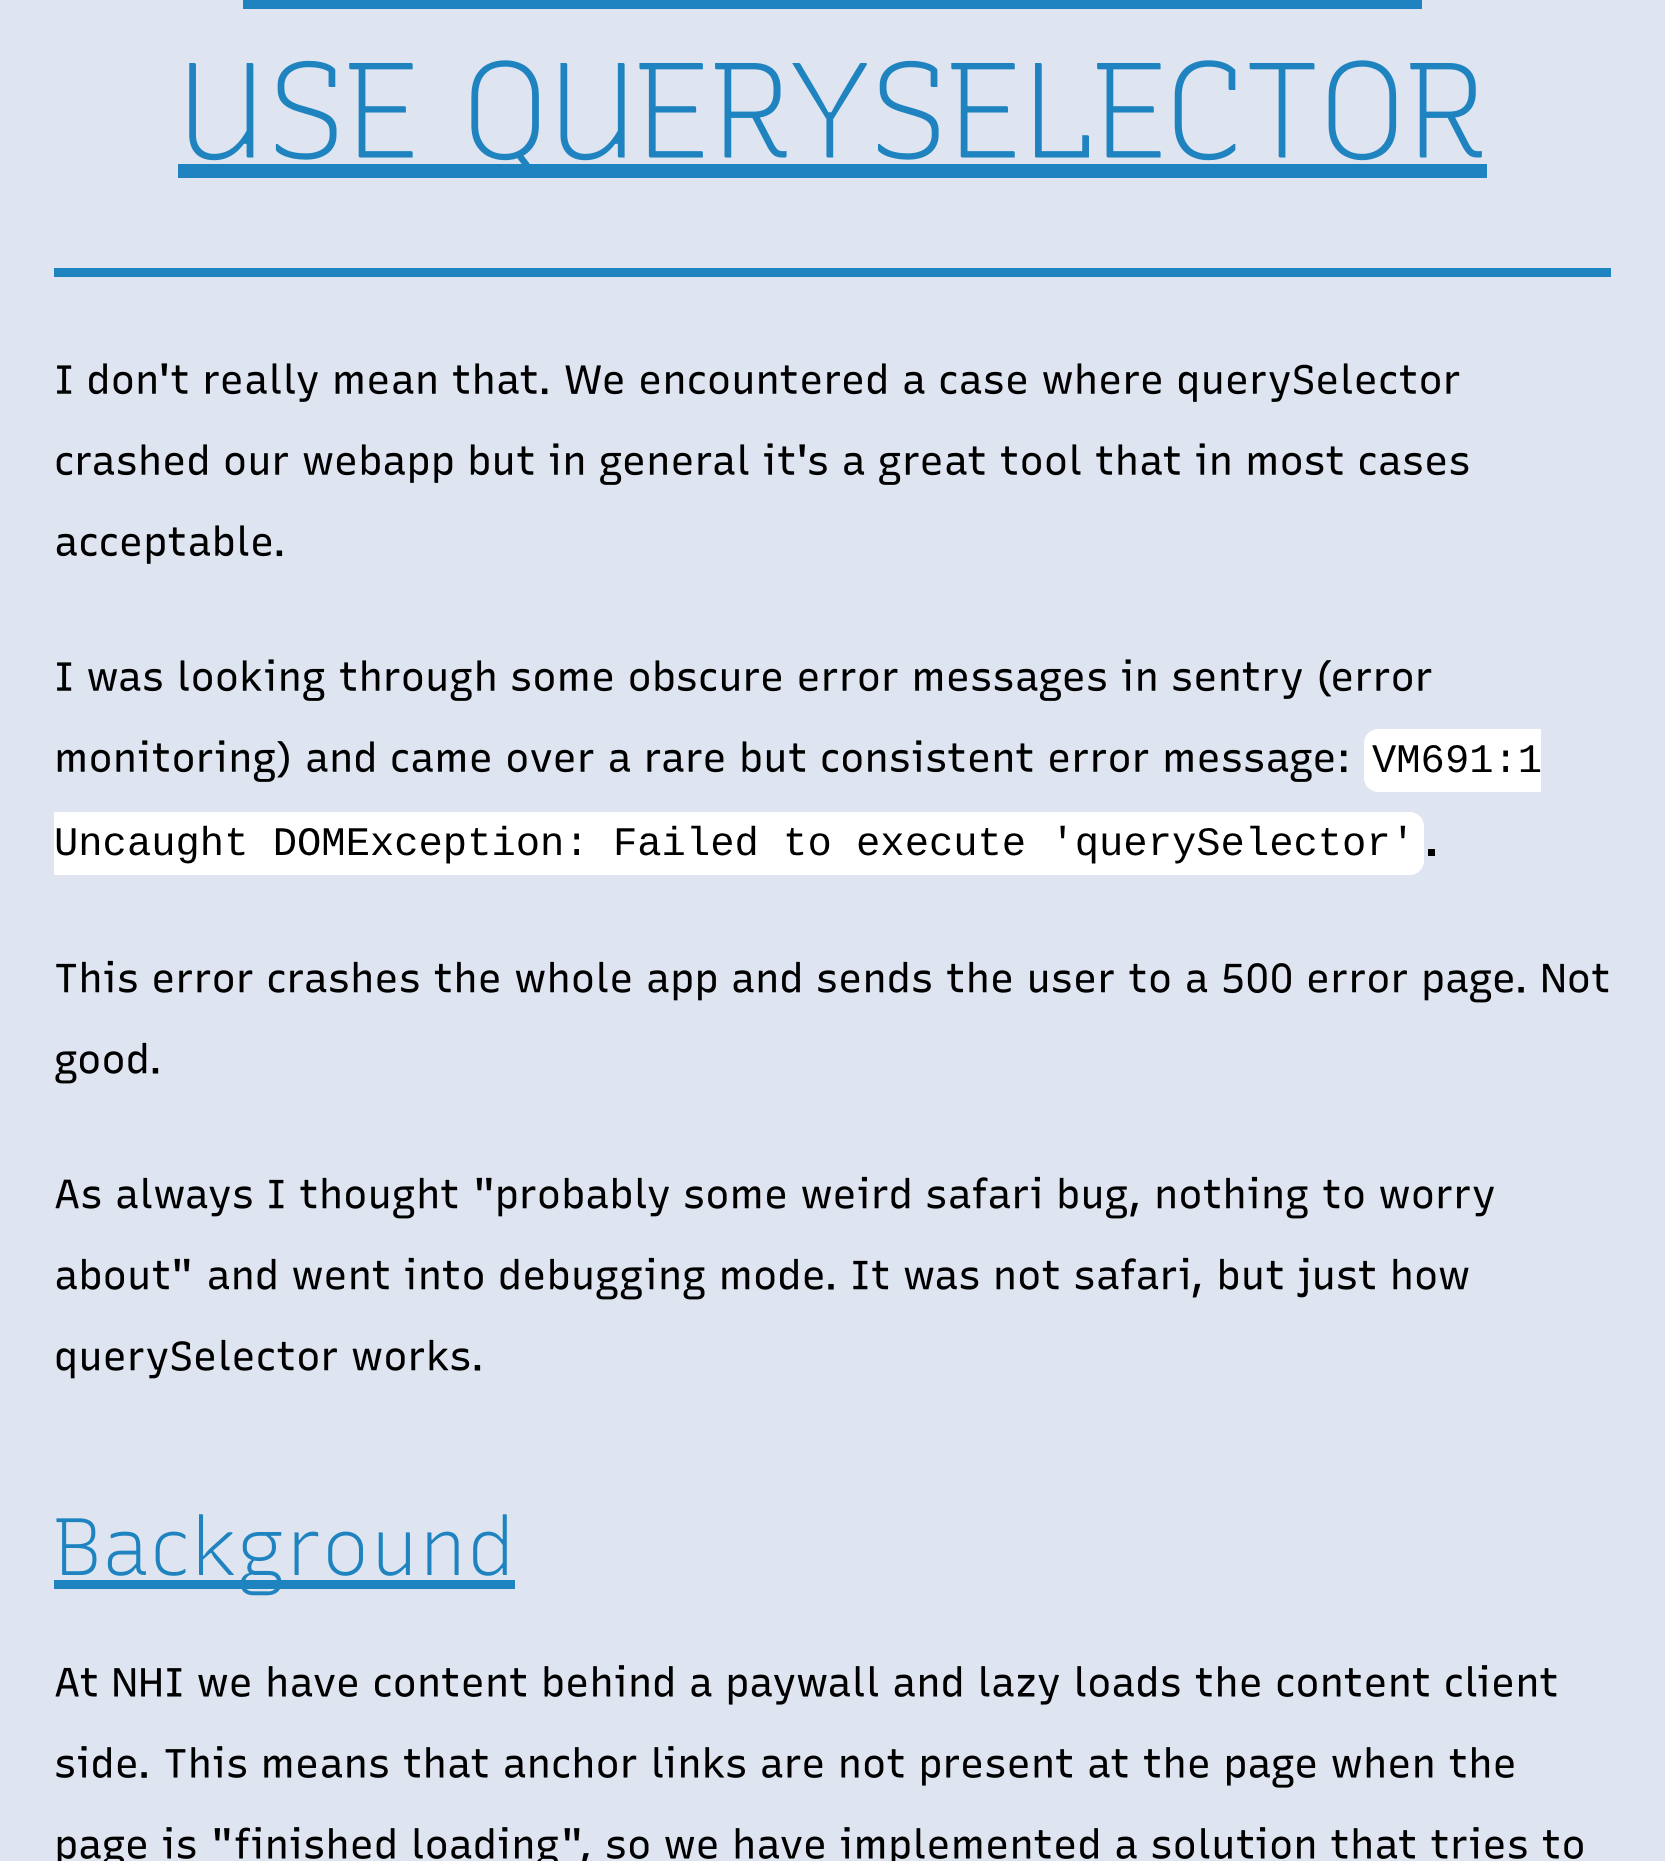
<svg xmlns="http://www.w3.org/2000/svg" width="1665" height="1861">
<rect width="100%" height="100%" fill="#dee5f1"/>
<rect x="243" width="1179" height="9" fill="#1e83bf"/>
<image x="189" y="60" width="1293" height="104" href="media/1.png"/>
<rect x="178" y="164" width="1309" height="14" fill="#1e83bf"/>
<rect x="54" y="268" width="1557" height="9" fill="#1e83bf"/>
<image x="57" y="363" width="1403" height="39" href="media/2.png"/>
<image x="56" y="443" width="1413" height="42" href="media/3.png"/>
<image x="56" y="525" width="227" height="39" href="media/4.png"/>
<image x="57" y="659" width="1375" height="42" href="media/5.png"/>
<image x="57" y="740" width="1290" height="42" href="media/6.png"/>
<path d="M1378 729h163v63h-163c-7.5 0-14-6.5-14-14v-35c0-7.5 6.5-14 14-14z" fill="#fff"/>
<text x="1372" y="772" style="font-family:Liberation Mono;font-size:40.5px;fill:#000">VM691:1</text>
<path d="M54 812h1356c7.5 0 14 6.5 14 14v35c0 7.5-6.5 14-14 14h-1356z" fill="#fff"/>
<text x="54" y="855" style="font-family:Liberation Mono;font-size:40.5px;fill:#000">Uncaught DOMException: Failed to execute 'querySelector'</text>
<rect x="1428" y="849" width="7" height="7" fill="#000"/>
<image x="56" y="960" width="1553" height="43" href="media/7.png"/>
<image x="55" y="1042" width="104" height="42" href="media/8.png"/>
<image x="55" y="1176" width="1439" height="43" href="media/9.png"/>
<image x="56" y="1257" width="1413" height="43" href="media/10.png"/>
<image x="56" y="1339" width="425" height="40" href="media/11.png"/>
<rect x="54" y="1580" width="461" height="9" fill="#1e83bf"/>
<image x="56" y="1514" width="451" height="82" href="media/12.png"/>
<image x="55" y="1665" width="1502" height="40" href="media/13.png"/>
<image x="56" y="1746" width="1458" height="42" href="media/14.png"/>
<image x="57" y="1827" width="1526" height="34" href="media/15.png"/>
</svg>
